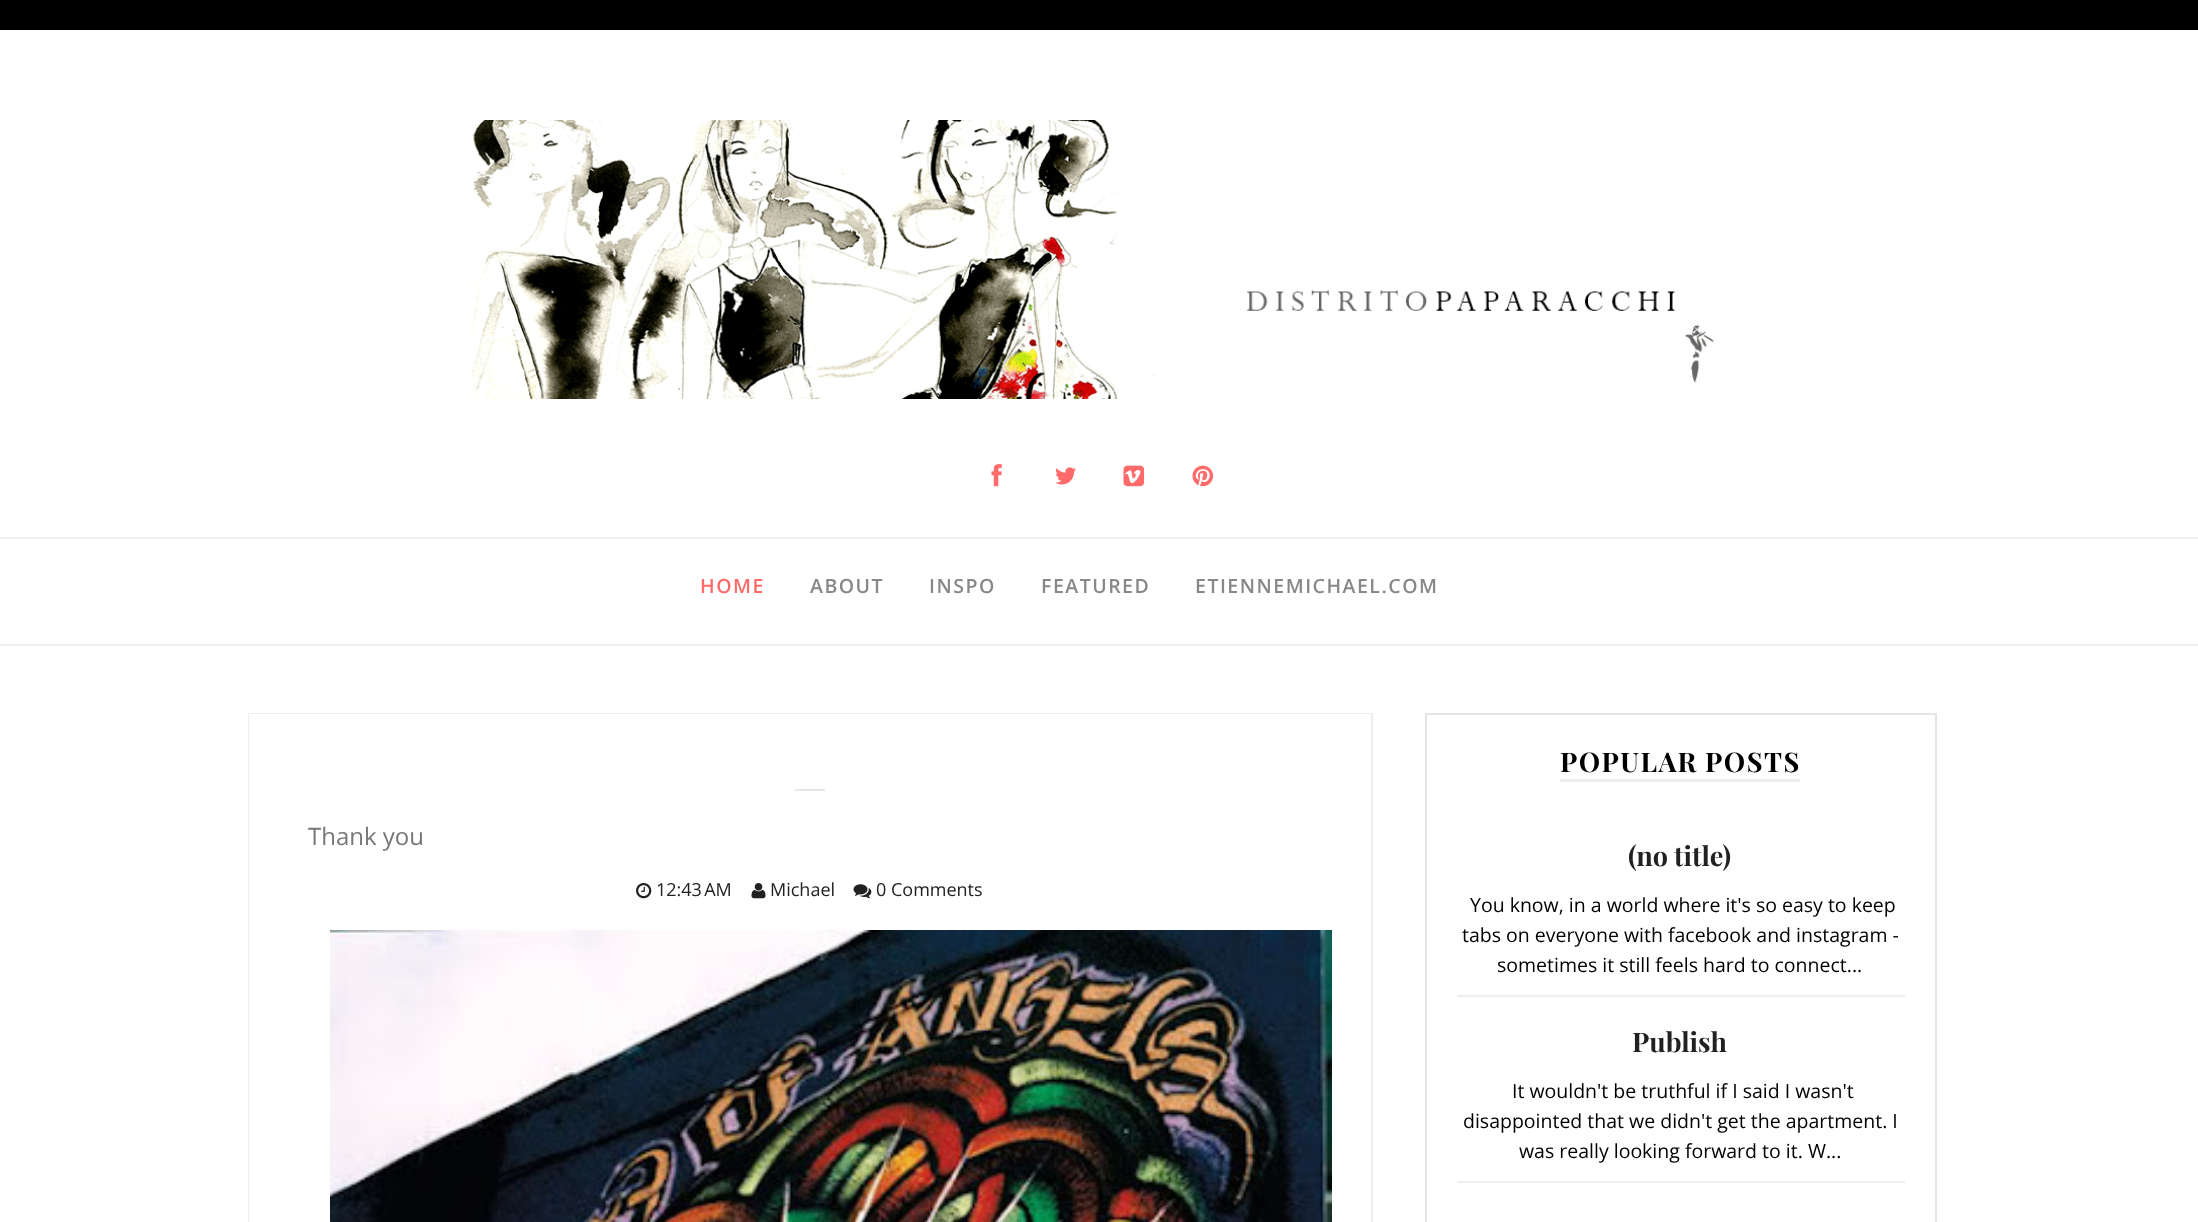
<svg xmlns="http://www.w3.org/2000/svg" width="2198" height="1222">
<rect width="100%" height="100%" fill="#fff"/>
<rect width="2198" height="30" fill="#000"/>
<image x="472" y="120" width="1242" height="279" href="media/1.png"/>
<image x="991" y="464" width="11" height="23" href="media/2.png"/>
<image x="1055" y="467" width="21" height="18" href="media/3.png"/>
<image x="1123" y="465" width="22" height="22" href="media/4.png"/>
<image x="1192" y="465" width="22" height="22" href="media/5.png"/>
<rect y="537" width="2198" height="2" fill="#eee"/>
<rect y="644" width="2198" height="2" fill="#eee"/>
<text x="700" y="593" style="font-family:Open Sans;font-size:19.5px;font-weight:600;letter-spacing:1.5px;fill:#ff6a6a">HOME</text>
<text x="810" y="593" style="font-family:Open Sans;font-size:19.5px;font-weight:600;letter-spacing:1.5px;fill:#888">ABOUT</text>
<text x="929" y="593" style="font-family:Open Sans;font-size:19.5px;font-weight:600;letter-spacing:1.5px;fill:#888">INSPO</text>
<text x="1041" y="593" style="font-family:Open Sans;font-size:19.5px;font-weight:600;letter-spacing:1.5px;fill:#888">FEATURED</text>
<text x="1195" y="593" style="font-family:Open Sans;font-size:19.5px;font-weight:600;letter-spacing:1.5px;fill:#888">ETIENNEMICHAEL.COM</text>
<rect x="249" y="714" width="1123" height="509" fill="none" stroke="#eee" stroke-width="2"/>
<rect x="249" y="714" width="1122" height="508" fill="#fff"/>
<rect x="795" y="789" width="30" height="2" fill="#e6e6e6"/>
<text x="308" y="845" style="font-family:Open Sans;font-size:24px;fill:#777">Thank you</text>
<image x="636" y="883" width="16" height="16" href="media/6.png"/>
<text x="656" y="896" style="font-family:Open Sans;font-size:18px;fill:#212121">12:43 AM</text>
<image x="751" y="883" width="15" height="16" href="media/7.png"/>
<text x="770" y="896" style="font-family:Open Sans;font-size:18px;fill:#212121">Michael</text>
<image x="853" y="884" width="19" height="15" href="media/8.png"/>
<text x="876" y="896" style="font-family:Open Sans;font-size:18px;fill:#212121">0 Comments</text>
<image x="330" y="930" width="1002" height="292" href="media/9.png"/>
<rect x="1426" y="714" width="510" height="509" fill="none" stroke="#e5e5e5" stroke-width="2"/>
<rect x="1560" y="779" width="240" height="3" fill="#eee"/>
<text x="1560" y="772" style="font-family:Playfair Display;font-size:27px;font-weight:bold;letter-spacing:1.5px;fill:#000">POPULAR POSTS</text>
<rect x="1457" y="995" width="448" height="2" fill="#eee"/>
<text x="1628" y="866" style="font-family:Playfair Display;font-size:27px;font-weight:bold;fill:#212121">(no title)</text>
<text x="1470" y="912" style="font-family:Open Sans;font-size:19.5px;fill:#000">You know, in a world where it's so easy to keep</text>
<text x="1462" y="942" style="font-family:Open Sans;font-size:19.5px;fill:#000">tabs on everyone with facebook and instagram -</text>
<text x="1497" y="972" style="font-family:Open Sans;font-size:19.5px;fill:#000">sometimes it still feels hard to connect...</text>
<rect x="1457" y="1181" width="448" height="2" fill="#eee"/>
<text x="1632" y="1052" style="font-family:Playfair Display;font-size:27px;font-weight:bold;fill:#212121">Publish</text>
<text x="1512" y="1098" style="font-family:Open Sans;font-size:19.5px;fill:#000">It wouldn't be truthful if I said I wasn't</text>
<text x="1463" y="1128" style="font-family:Open Sans;font-size:19.5px;fill:#000">disappointed that we didn't get the apartment. I</text>
<text x="1519" y="1158" style="font-family:Open Sans;font-size:19.5px;fill:#000">was really looking forward to it. W...</text>
</svg>
